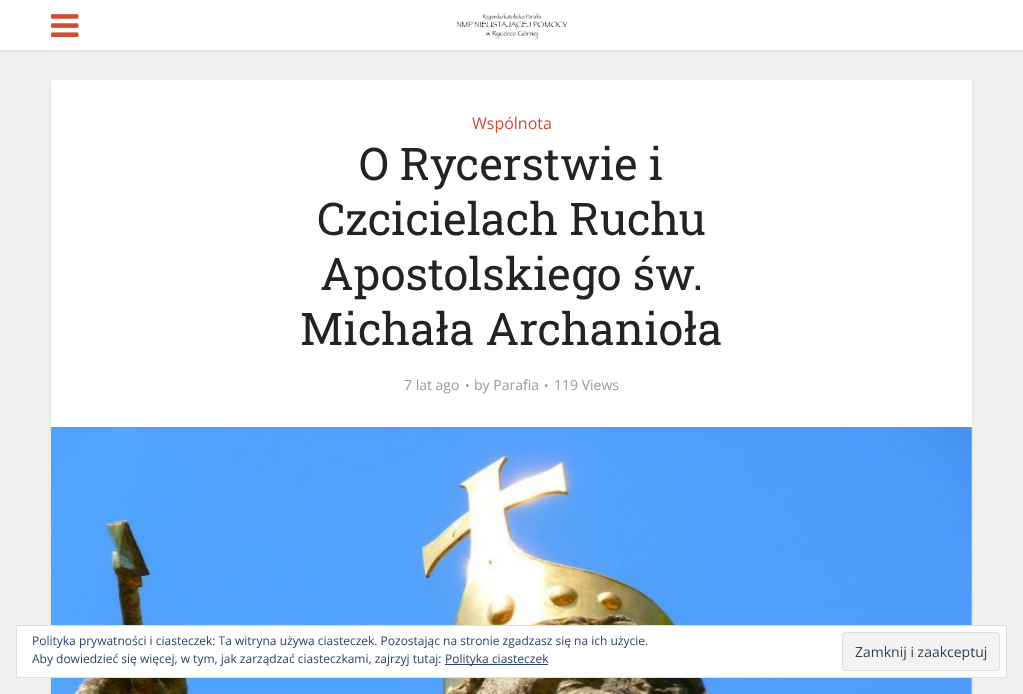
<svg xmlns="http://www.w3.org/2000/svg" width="1023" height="694">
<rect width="100%" height="100%" fill="#f0f0f0"/>
<rect y="1" width="1023" height="50" fill="#0000001a" filter="blur(1.5px)"/>
<rect width="1023" height="50" fill="#fff"/>
<image x="51" y="14" width="28" height="23" href="media/1.png"/>
<image x="456" y="13" width="112" height="27" href="media/2.png"/>
<rect x="51" y="81" width="921" height="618" fill="#0000001a" filter="blur(1.5px)"/>
<rect x="51" y="80" width="921" height="614" fill="#fff"/>
<text x="472" y="129" style="font-family:Open Sans;font-size:16px;fill:#cf4d35">Wspólnota</text>
<text x="359" y="180" style="font-family:Roboto Slab;font-size:45px;fill:#232323">O Rycerstwie i</text>
<text x="317" y="235" style="font-family:Roboto Slab;font-size:45px;fill:#232323">Czcicielach Ruchu</text>
<text x="320" y="290" style="font-family:Roboto Slab;font-size:45px;fill:#232323">Apostolskiego św.</text>
<text x="300" y="345" style="font-family:Roboto Slab;font-size:45px;fill:#232323">Michała Archanioła</text>
<text x="404" y="390" style="font-family:Open Sans;font-size:14px;fill:#9b9b9b">7 lat ago</text>
<text x="465" y="390" style="font-family:Open Sans;font-size:12px;fill:#9b9b9b">•</text>
<text x="474" y="390" style="font-family:Open Sans;font-size:14px;fill:#9b9b9b">by Parafia</text>
<text x="544" y="390" style="font-family:Open Sans;font-size:12px;fill:#9b9b9b">•</text>
<text x="554" y="390" style="font-family:Open Sans;font-size:14px;fill:#9b9b9b">119 Views</text>
<image x="51" y="427" width="921" height="267" href="media/3.png"/>
<rect x="16.5" y="625.5" width="990" height="52" fill="#fff" stroke="#dedede"/>
<text x="32" y="645" style="font-family:Open Sans;font-size:12px;fill:#2e4467">Polityka prywatności i ciasteczek: Ta witryna używa ciasteczek. Pozostając na stronie zgadzasz się na ich użycie.</text>
<text x="32" y="663" style="font-family:Open Sans;font-size:12px;fill:#2e4467">Aby dowiedzieć się więcej, w tym, jak zarządzać ciasteczkami, zajrzyj tutaj:</text>
<rect x="445" y="664" width="103" height="1" fill="#2e4467"/>
<text x="445" y="663" style="font-family:Open Sans;font-size:12px;fill:#2e4467">Polityka ciasteczek</text>
<rect x="842.5" y="632.5" width="157" height="38" rx="2.5" fill="#f3f3f3" stroke="#dedede"/>
<text x="855" y="657" style="font-family:Open Sans;font-size:14px;fill:#2e4453">Zamknij i zaakceptuj</text>
</svg>
